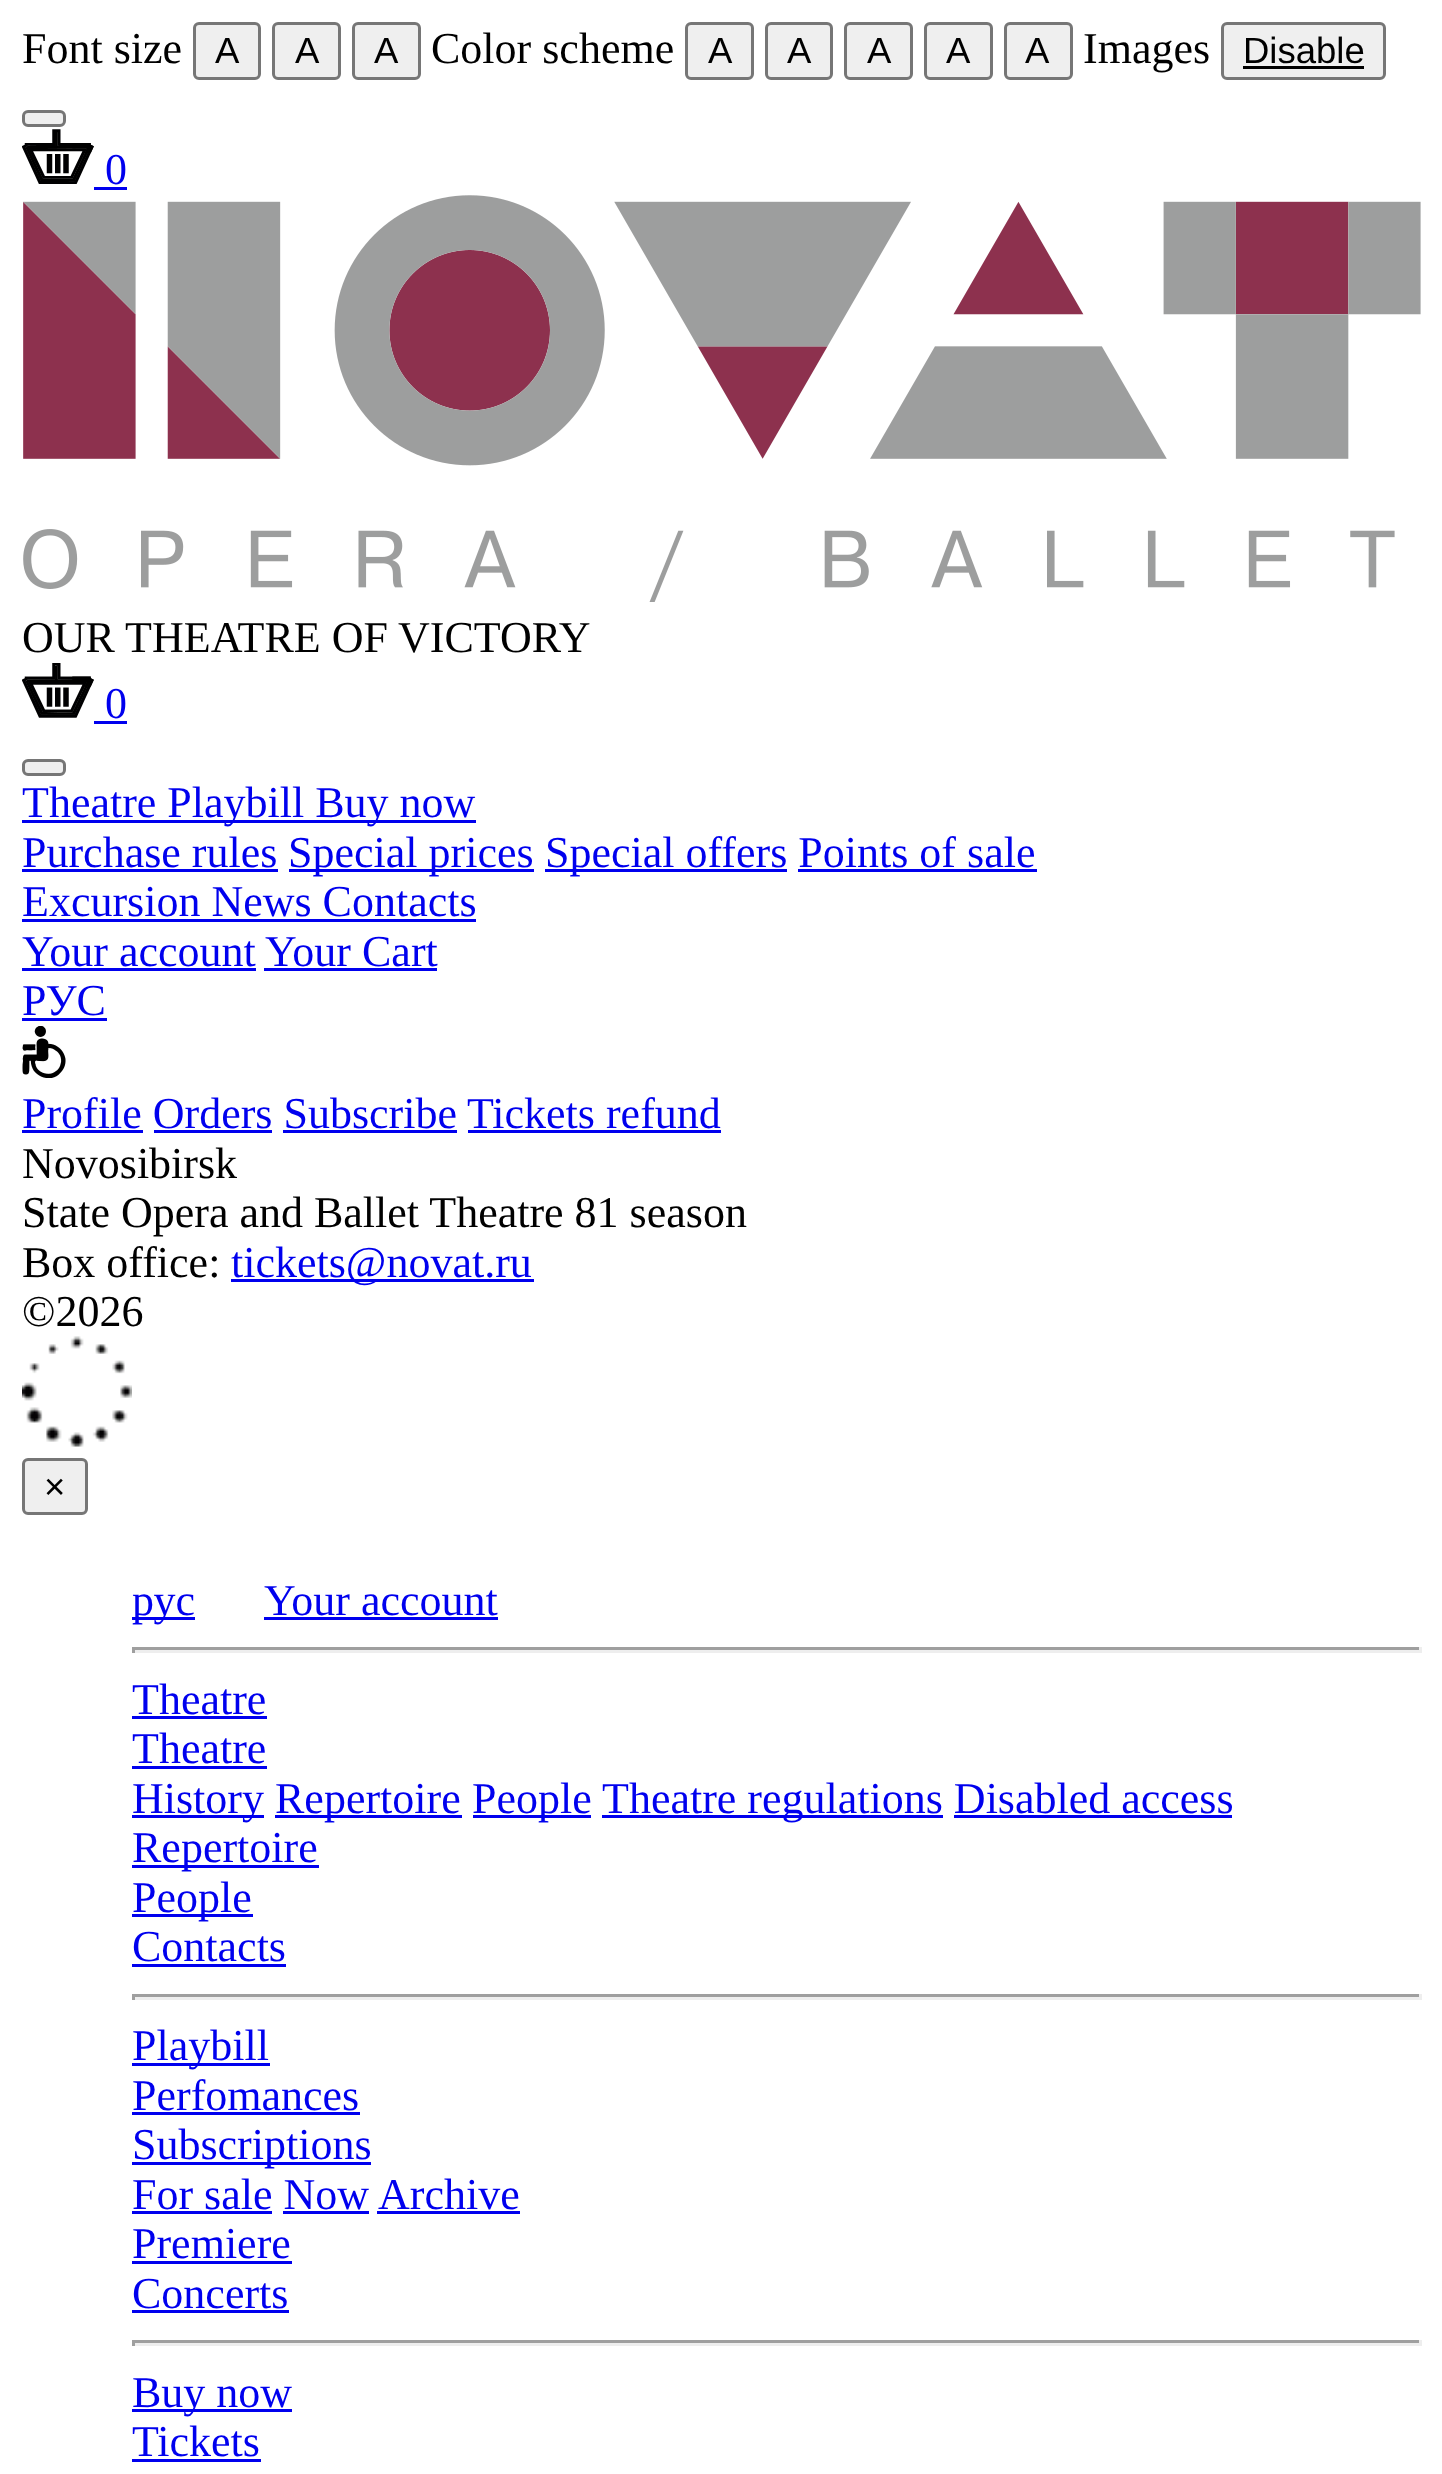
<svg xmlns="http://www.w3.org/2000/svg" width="1442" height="2474">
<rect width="100%" height="100%" fill="#fff"/>
<text x="22" y="63" style="font-family:Liberation Serif;font-size:44px;fill:#000">Font size</text>
<rect x="194.5" y="23.5" width="65" height="55" rx="4.5" fill="#efefef" stroke="#767676" stroke-width="3"/>
<text x="215" y="63" style="font-family:Liberation Sans;font-size:36.5px;fill:#000">A</text>
<rect x="273.5" y="23.5" width="66" height="55" rx="4.5" fill="#efefef" stroke="#767676" stroke-width="3"/>
<text x="295" y="63" style="font-family:Liberation Sans;font-size:36.5px;fill:#000">A</text>
<rect x="353.5" y="23.5" width="66" height="55" rx="4.5" fill="#efefef" stroke="#767676" stroke-width="3"/>
<text x="374" y="63" style="font-family:Liberation Sans;font-size:36.5px;fill:#000">A</text>
<text x="431" y="63" style="font-family:Liberation Serif;font-size:44px;fill:#000">Color scheme</text>
<rect x="686.5" y="23.5" width="66" height="55" rx="4.5" fill="#efefef" stroke="#767676" stroke-width="3"/>
<text x="708" y="63" style="font-family:Liberation Sans;font-size:36.5px;fill:#000">A</text>
<rect x="766.5" y="23.5" width="65" height="55" rx="4.5" fill="#efefef" stroke="#767676" stroke-width="3"/>
<text x="787" y="63" style="font-family:Liberation Sans;font-size:36.5px;fill:#000">A</text>
<rect x="845.5" y="23.5" width="66" height="55" rx="4.5" fill="#efefef" stroke="#767676" stroke-width="3"/>
<text x="867" y="63" style="font-family:Liberation Sans;font-size:36.5px;fill:#000">A</text>
<rect x="925.5" y="23.5" width="66" height="55" rx="4.5" fill="#efefef" stroke="#767676" stroke-width="3"/>
<text x="946" y="63" style="font-family:Liberation Sans;font-size:36.5px;fill:#000">A</text>
<rect x="1005.5" y="23.5" width="66" height="55" rx="4.5" fill="#efefef" stroke="#767676" stroke-width="3"/>
<text x="1025" y="63" style="font-family:Liberation Sans;font-size:36.5px;fill:#000">A</text>
<text x="1083" y="63" style="font-family:Liberation Serif;font-size:44px;fill:#000">Images</text>
<rect x="1222.5" y="23.5" width="162" height="55" rx="4.5" fill="#efefef" stroke="#767676" stroke-width="3"/>
<text x="1243" y="63" style="font-family:Liberation Sans;font-size:36.5px;fill:#000">Disable</text>
<rect x="1243" y="66" width="121" height="3" fill="#000"/>
<rect x="23.5" y="111.5" width="41" height="14" rx="4.5" fill="#efefef" stroke="#767676" stroke-width="3"/>
<image x="22" y="129" width="72" height="55" href="media/1.png"/>
<text x="105" y="184" style="font-family:Liberation Serif;font-size:44px;fill:#00e">0</text>
<rect x="94" y="187" width="33" height="3" fill="#00e"/>
<image x="23" y="195" width="1398" height="407" href="media/2.png"/>
<text x="22" y="652" style="font-family:Liberation Serif;font-size:44px;fill:#000">OUR THEATRE OF VICTORY</text>
<image x="22" y="663" width="72" height="55" href="media/3.png"/>
<text x="105" y="718" style="font-family:Liberation Serif;font-size:44px;fill:#00e">0</text>
<rect x="94" y="721" width="33" height="3" fill="#00e"/>
<rect x="23.5" y="760.5" width="41" height="14" rx="4.5" fill="#efefef" stroke="#767676" stroke-width="3"/>
<rect x="22" y="820" width="454" height="3" fill="#00e"/>
<text x="22" y="817" style="font-family:Liberation Serif;font-size:44px;fill:#00e">Theatre Playbill Buy now</text>
<text x="22" y="867" style="font-family:Liberation Serif;font-size:44px;fill:#00e">Purchase rules</text>
<rect x="22" y="869" width="256" height="3" fill="#00e"/>
<rect x="289" y="869" width="245" height="3" fill="#00e"/>
<text x="288" y="867" style="font-family:Liberation Serif;font-size:44px;fill:#00e">Special prices</text>
<rect x="545" y="869" width="242" height="3" fill="#00e"/>
<text x="545" y="867" style="font-family:Liberation Serif;font-size:44px;fill:#00e">Special offers Points of sale</text>
<rect x="798" y="869" width="239" height="3" fill="#00e"/>
<text x="22" y="916" style="font-family:Liberation Serif;font-size:44px;fill:#00e">Excursion News Contacts</text>
<rect x="22" y="919" width="454" height="3" fill="#00e"/>
<text x="22" y="966" style="font-family:Liberation Serif;font-size:44px;fill:#00e">Your account</text>
<rect x="22" y="968" width="234" height="3" fill="#00e"/>
<text x="265" y="966" style="font-family:Liberation Serif;font-size:44px;fill:#00e">Your Cart</text>
<rect x="264" y="968" width="173" height="3" fill="#00e"/>
<text x="22" y="1015" style="font-family:Liberation Serif;font-size:44px;fill:#00e">РУС</text>
<rect x="22" y="1018" width="85" height="3" fill="#00e"/>
<image x="22" y="1026" width="44" height="52" href="media/4.png"/>
<text x="22" y="1128" style="font-family:Liberation Serif;font-size:44px;fill:#00e">Profile Orders Subscribe</text>
<rect x="22" y="1130" width="121" height="3" fill="#00e"/>
<text x="467" y="1128" style="font-family:Liberation Serif;font-size:44px;fill:#00e">Tickets refund</text>
<rect x="468" y="1130" width="253" height="3" fill="#00e"/>
<rect x="154" y="1130" width="118" height="3" fill="#00e"/>
<rect x="283" y="1130" width="174" height="3" fill="#00e"/>
<text x="22" y="1178" style="font-family:Liberation Serif;font-size:44px;fill:#000">Novosibirsk</text>
<text x="22" y="1227" style="font-family:Liberation Serif;font-size:44px;fill:#000">State Opera and Ballet Theatre 81 season</text>
<text x="22" y="1277" style="font-family:Liberation Serif;font-size:44px;fill:#000">Box office:</text>
<rect x="231" y="1279" width="303" height="3" fill="#00e"/>
<text x="231" y="1277" style="font-family:Liberation Serif;font-size:44px;fill:#00e">tickets@novat.ru</text>
<text x="22" y="1326" style="font-family:Liberation Serif;font-size:44px;fill:#000">©2026</text>
<image x="22" y="1336" width="110" height="111" href="media/5.png"/>
<rect x="23.5" y="1459.5" width="63" height="54" rx="4.5" fill="#efefef" stroke="#767676" stroke-width="3"/>
<text x="44" y="1499" style="font-family:Liberation Sans;font-size:36.5px;fill:#000">×</text>
<rect x="132" y="1617" width="63" height="3" fill="#00e"/>
<text x="132" y="1615" style="font-family:Liberation Serif;font-size:44px;fill:#00e">рус</text>
<text x="264" y="1615" style="font-family:Liberation Serif;font-size:44px;fill:#00e">Your account</text>
<rect x="264" y="1617" width="234" height="3" fill="#00e"/>
<rect x="132" y="1647" width="1290" height="3" fill="#9f9f9f"/>
<rect x="1419" y="1647" width="3" height="6" fill="#eee"/>
<rect x="132" y="1650" width="1290" height="3" fill="#eee"/>
<rect x="132" y="1647" width="3" height="6" fill="#9f9f9f"/>
<text x="132" y="1714" style="font-family:Liberation Serif;font-size:44px;fill:#00e">Theatre</text>
<rect x="132" y="1716" width="135" height="3" fill="#00e"/>
<text x="132" y="1763" style="font-family:Liberation Serif;font-size:44px;fill:#00e">Theatre</text>
<rect x="132" y="1766" width="135" height="3" fill="#00e"/>
<rect x="132" y="1815" width="132" height="3" fill="#00e"/>
<text x="132" y="1813" style="font-family:Liberation Serif;font-size:44px;fill:#00e">History</text>
<rect x="275" y="1815" width="187" height="3" fill="#00e"/>
<text x="275" y="1813" style="font-family:Liberation Serif;font-size:44px;fill:#00e">Repertoire</text>
<rect x="473" y="1815" width="118" height="3" fill="#00e"/>
<text x="472" y="1813" style="font-family:Liberation Serif;font-size:44px;fill:#00e">People</text>
<rect x="602" y="1815" width="341" height="3" fill="#00e"/>
<text x="602" y="1813" style="font-family:Liberation Serif;font-size:44px;fill:#00e">Theatre regulations Disabled access</text>
<rect x="954" y="1815" width="278" height="3" fill="#00e"/>
<rect x="132" y="1865" width="187" height="3" fill="#00e"/>
<text x="132" y="1862" style="font-family:Liberation Serif;font-size:44px;fill:#00e">Repertoire</text>
<rect x="132" y="1914" width="121" height="3" fill="#00e"/>
<text x="132" y="1912" style="font-family:Liberation Serif;font-size:44px;fill:#00e">People</text>
<text x="132" y="1961" style="font-family:Liberation Serif;font-size:44px;fill:#00e">Contacts</text>
<rect x="132" y="1964" width="154" height="3" fill="#00e"/>
<rect x="132" y="1994" width="1290" height="3" fill="#9f9f9f"/>
<rect x="1419" y="1994" width="3" height="6" fill="#eee"/>
<rect x="132" y="1997" width="1290" height="3" fill="#eee"/>
<rect x="132" y="1994" width="3" height="6" fill="#9f9f9f"/>
<rect x="132" y="2063" width="138" height="3" fill="#00e"/>
<text x="132" y="2060" style="font-family:Liberation Serif;font-size:44px;fill:#00e">Playbill</text>
<text x="132" y="2110" style="font-family:Liberation Serif;font-size:44px;fill:#00e">Perfomances</text>
<rect x="132" y="2112" width="228" height="3" fill="#00e"/>
<rect x="132" y="2162" width="239" height="3" fill="#00e"/>
<text x="132" y="2159" style="font-family:Liberation Serif;font-size:44px;fill:#00e">Subscriptions</text>
<text x="132" y="2209" style="font-family:Liberation Serif;font-size:44px;fill:#00e">For sale Now</text>
<rect x="132" y="2211" width="140" height="3" fill="#00e"/>
<text x="378" y="2209" style="font-family:Liberation Serif;font-size:44px;fill:#00e">Archive</text>
<rect x="377" y="2211" width="143" height="3" fill="#00e"/>
<rect x="283" y="2211" width="86" height="3" fill="#00e"/>
<text x="132" y="2258" style="font-family:Liberation Serif;font-size:44px;fill:#00e">Premiere</text>
<rect x="132" y="2261" width="160" height="3" fill="#00e"/>
<text x="132" y="2308" style="font-family:Liberation Serif;font-size:44px;fill:#00e">Concerts</text>
<rect x="132" y="2310" width="157" height="3" fill="#00e"/>
<rect x="132" y="2340" width="1290" height="3" fill="#9f9f9f"/>
<rect x="1419" y="2340" width="3" height="6" fill="#eee"/>
<rect x="132" y="2343" width="1290" height="3" fill="#eee"/>
<rect x="132" y="2340" width="3" height="6" fill="#9f9f9f"/>
<rect x="132" y="2409" width="160" height="3" fill="#00e"/>
<text x="132" y="2407" style="font-family:Liberation Serif;font-size:44px;fill:#00e">Buy now</text>
<text x="132" y="2456" style="font-family:Liberation Serif;font-size:44px;fill:#00e">Tickets</text>
<rect x="132" y="2459" width="129" height="3" fill="#00e"/>
</svg>
